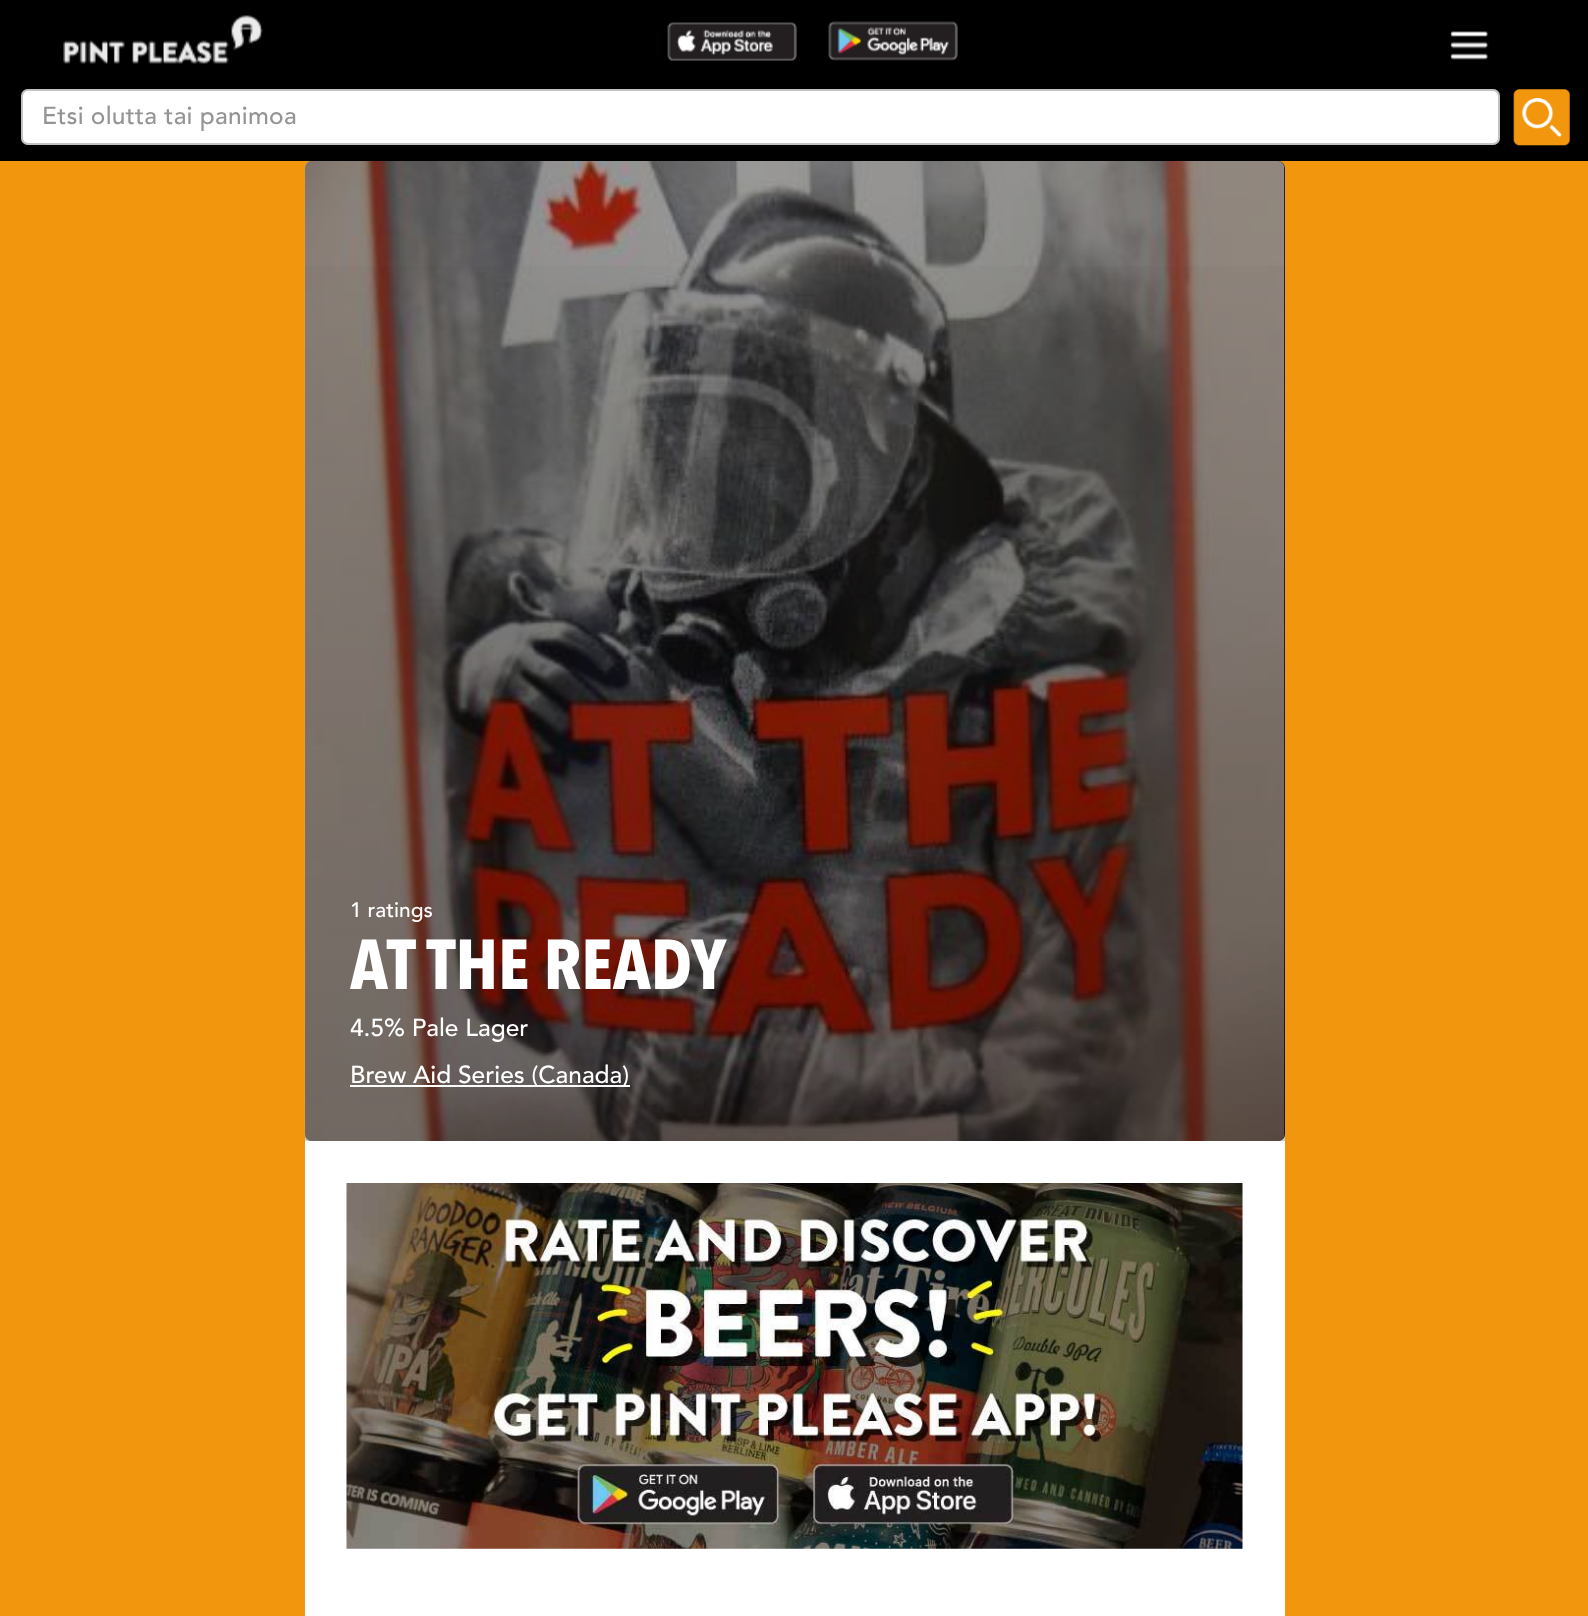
<svg xmlns="http://www.w3.org/2000/svg" width="1588" height="1616">
<defs>
<linearGradient id="g1" gradientUnits="userSpaceOnUse" x1="794" y1="161" x2="795" y2="1141"><stop offset="0" stop-color="#000" stop-opacity="0"/><stop offset="1" stop-color="#000" stop-opacity="0.2"/></linearGradient>
</defs>
<rect width="100%" height="100%" fill="#f2970d"/>
<rect width="1588" height="161" fill="#000"/>
<image x="63" y="15" width="200" height="49" href="media/1.png"/>
<image x="667" y="22" width="130" height="39" href="media/2.png"/>
<image x="828" y="21" width="130" height="40" href="media/3.png"/>
<image x="1450" y="31" width="39" height="29" href="media/4.png"/>
<rect x="21" y="89" width="1479" height="56" rx="7" fill="#fff"/>
<rect x="22" y="90" width="1477" height="54" rx="6" fill="none" stroke="#0000003d" stroke-width="2"/>
<text x="42" y="124" style="font-family:Avenir;font-size:24.5px;font-weight:500;letter-spacing:0.25px;fill:#949497">Etsi olutta tai panimoa</text>
<image x="1513" y="89" width="57" height="57" href="media/5.png"/>
<rect x="305" y="161" width="980" height="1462" rx="7" fill="#fff"/>
<rect x="305" y="161" width="980" height="980" rx="7" fill="#000"/>
<image x="304" y="161" width="981" height="980" href="media/6.png"/>
<rect x="305" y="266" width="980" height="875" fill="url(#g1)"/>
<text x="350" y="917" style="font-family:Avenir;font-size:21px;font-weight:500;fill:#fff">1 ratings</text>
<text x="350" y="989" style="font-family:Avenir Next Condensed;font-size:70px;font-weight:bold;fill:#fff">AT THE READY</text>
<text x="350" y="1036" style="font-family:Avenir;font-size:24.5px;font-weight:500;fill:#fff">4.5% Pale Lager</text>
<rect x="350" y="1085" width="280" height="2" fill="#fff"/>
<text x="350" y="1083" style="font-family:Avenir;font-size:24.5px;font-weight:500;fill:#fff">Brew Aid Series (Canada)</text>
<image x="346" y="1183" width="897" height="366" href="media/7.png"/>
</svg>
